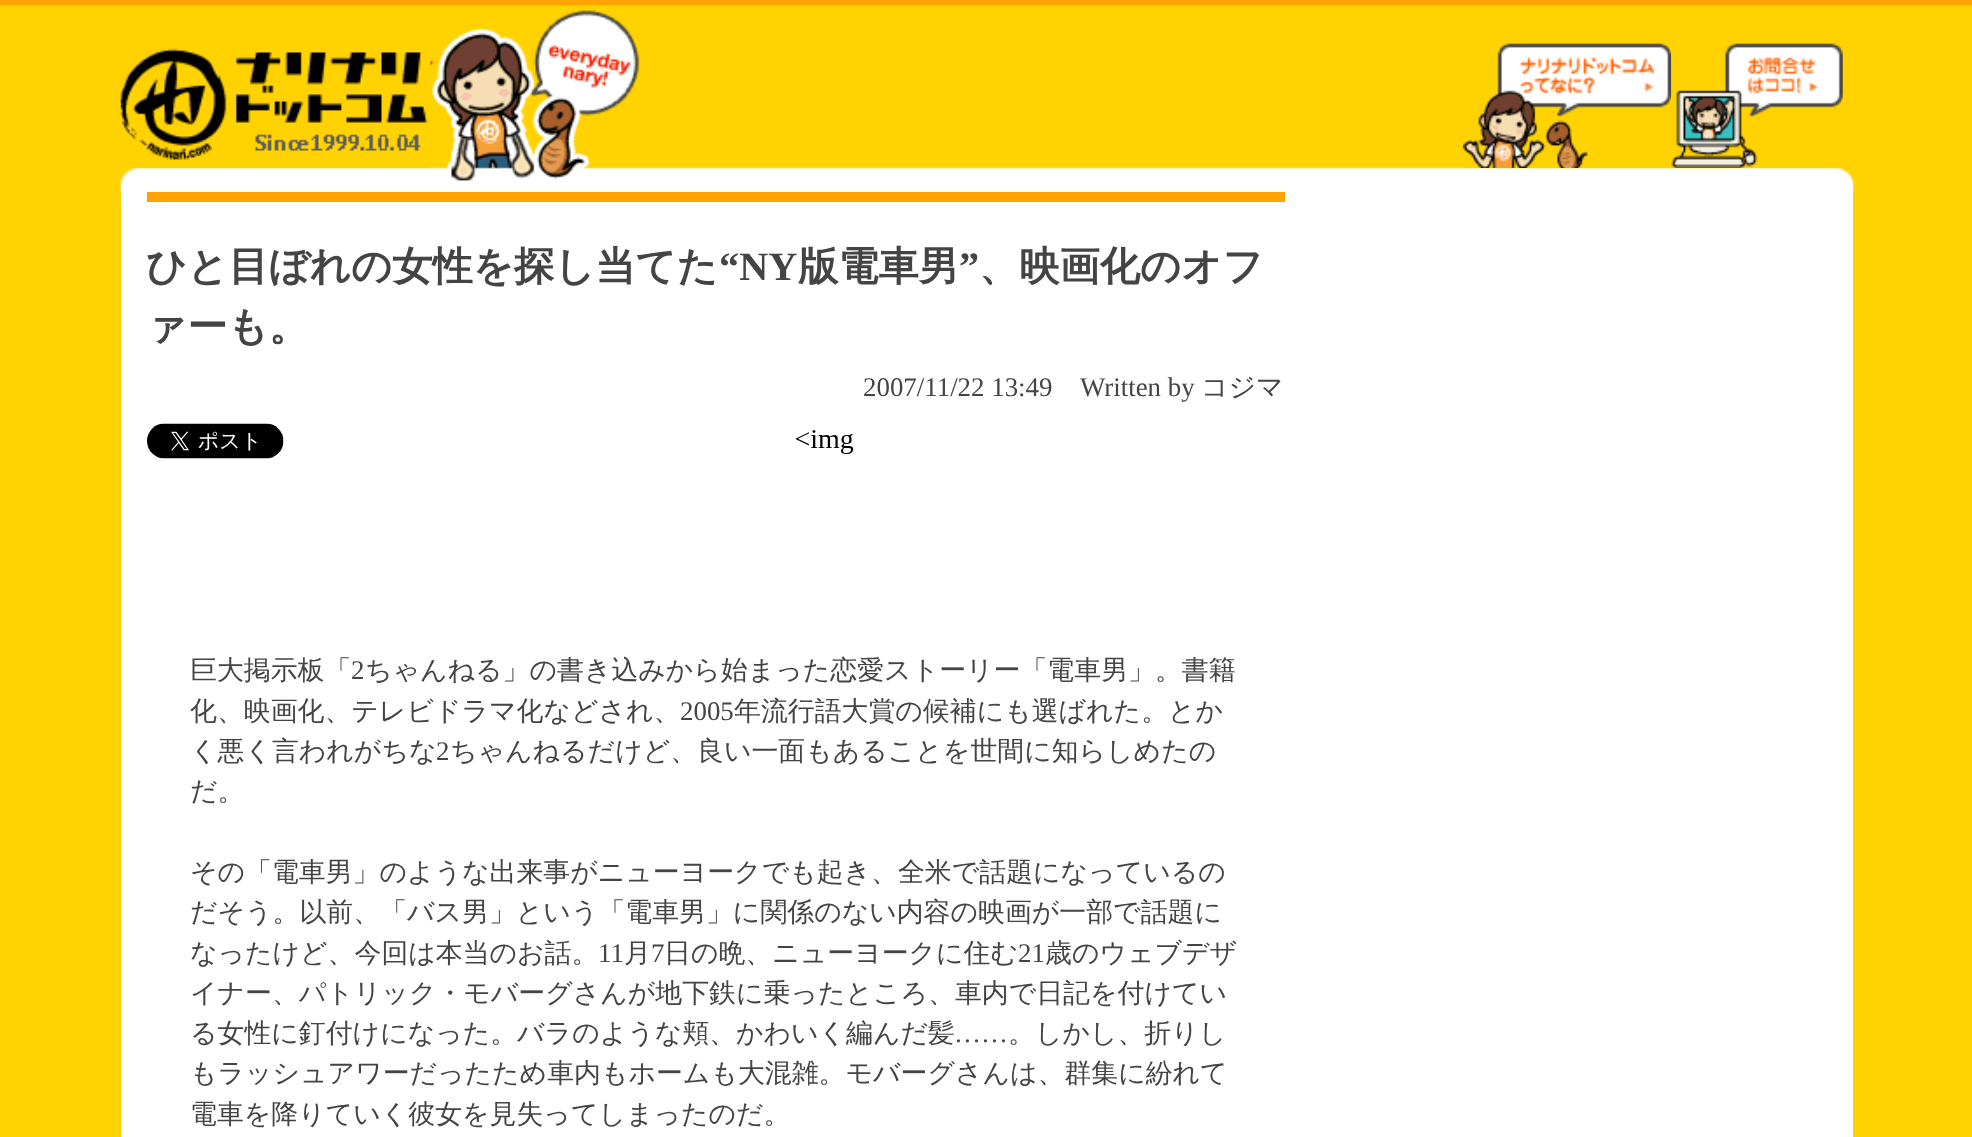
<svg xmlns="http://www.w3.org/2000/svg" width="1972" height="1137">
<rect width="100%" height="100%" fill="#ffd200"/>
<image x="0" y="0" width="1972" height="6" href="media/1.png"/>
<rect x="121" y="192" width="1732" height="945" fill="#fff"/>
<image x="120" y="7" width="1734" height="186" href="media/2.png"/>
<image x="120" y="48" width="311" height="120" href="media/3.png"/>
<image x="1463" y="43" width="209" height="125" href="media/4.png"/>
<image x="1671" y="43" width="172" height="125" href="media/5.png"/>
<rect x="147" y="192" width="1138" height="10" fill="#ffa300"/>
<text x="146" y="280" style="font-family:WenQuanYi Zen Hei;font-size:40.25px;font-weight:bold;fill:#444">ひと目ぼれの女性を探し当てた</text>
<text x="719" y="280" style="font-family:Liberation Serif;font-size:40.25px;font-weight:bold;fill:#444">“NY</text>
<text x="798" y="280" style="font-family:WenQuanYi Zen Hei;font-size:40.25px;font-weight:bold;fill:#444">版電車男</text>
<text x="959" y="280" style="font-family:Liberation Serif;font-size:40.25px;font-weight:bold;fill:#444">”</text>
<text x="979" y="280" style="font-family:WenQuanYi Zen Hei;font-size:40.25px;font-weight:bold;fill:#444">、映画化のオフ</text>
<text x="146" y="340" style="font-family:WenQuanYi Zen Hei;font-size:40.25px;font-weight:bold;fill:#444">ァーも。</text>
<text x="863" y="396" style="font-family:Liberation Serif;font-size:26.9px;fill:#444">2007/11/22 13:49</text>
<text x="1080" y="396" style="font-family:Liberation Serif;font-size:26.9px;fill:#444">Written by</text>
<text x="1201" y="396" style="font-family:WenQuanYi Zen Hei;font-size:26.9px;font-weight:500;fill:#444">コジマ</text>
<image x="147" y="423" width="137" height="36" href="media/6.png"/>
<image x="795" y="430" width="59" height="24" href="media/7.png"/>
<text x="190" y="679" style="font-family:WenQuanYi Zen Hei;font-size:26.9px;font-weight:500;fill:#444">巨大掲示板「</text>
<text x="351" y="679" style="font-family:Liberation Serif;font-size:26.9px;fill:#444">2</text>
<text x="365" y="679" style="font-family:WenQuanYi Zen Hei;font-size:26.9px;font-weight:500;fill:#444">ちゃんねる」の書き込みから始まった恋愛ストーリー「電車男」。書籍</text>
<text x="190" y="720" style="font-family:WenQuanYi Zen Hei;font-size:26.9px;font-weight:500;fill:#444">化、映画化、テレビドラマ化などされ、</text>
<text x="680" y="720" style="font-family:Liberation Serif;font-size:26.9px;fill:#444">2005</text>
<text x="734" y="720" style="font-family:WenQuanYi Zen Hei;font-size:26.9px;font-weight:500;fill:#444">年流行語大賞の候補にも選ばれた。とか</text>
<text x="190" y="760" style="font-family:WenQuanYi Zen Hei;font-size:26.9px;font-weight:500;fill:#444">く悪く言われがちな</text>
<text x="436" y="760" style="font-family:Liberation Serif;font-size:26.9px;fill:#444">2</text>
<text x="450" y="760" style="font-family:WenQuanYi Zen Hei;font-size:26.9px;font-weight:500;fill:#444">ちゃんねるだけど、良い一面もあることを世間に知らしめたの</text>
<text x="190" y="800" style="font-family:WenQuanYi Zen Hei;font-size:26.9px;font-weight:500;fill:#444">だ。</text>
<text x="190" y="881" style="font-family:WenQuanYi Zen Hei;font-size:26.9px;font-weight:500;fill:#444">その「電車男」のような出来事がニューヨークでも起き、全米で話題になっているの</text>
<text x="190" y="921" style="font-family:WenQuanYi Zen Hei;font-size:26.9px;font-weight:500;fill:#444">だそう。以前、「バス男」という「電車男」に関係のない内容の映画が一部で話題に</text>
<text x="190" y="962" style="font-family:WenQuanYi Zen Hei;font-size:26.9px;font-weight:500;fill:#444">なったけど、今回は本当のお話。</text>
<text x="598" y="962" style="font-family:Liberation Serif;font-size:26.9px;fill:#444">11</text>
<text x="624" y="962" style="font-family:WenQuanYi Zen Hei;font-size:26.9px;font-weight:500;fill:#444">月</text>
<text x="651" y="962" style="font-family:Liberation Serif;font-size:26.9px;fill:#444">7</text>
<text x="664" y="962" style="font-family:WenQuanYi Zen Hei;font-size:26.9px;font-weight:500;fill:#444">日の晩、ニューヨークに住む</text>
<text x="1018" y="962" style="font-family:Liberation Serif;font-size:26.9px;fill:#444">21</text>
<text x="1045" y="962" style="font-family:WenQuanYi Zen Hei;font-size:26.9px;font-weight:500;fill:#444">歳のウェブデザ</text>
<text x="190" y="1002" style="font-family:WenQuanYi Zen Hei;font-size:26.9px;font-weight:500;fill:#444">イナー、パトリック・モバーグさんが地下鉄に乗ったところ、車内で日記を付けてい</text>
<text x="190" y="1042" style="font-family:WenQuanYi Zen Hei;font-size:26.9px;font-weight:500;fill:#444">る女性に釘付けになった。バラのような頬、かわいく編んだ髪</text>
<text x="954" y="1042" style="font-family:Liberation Serif;font-size:26.9px;fill:#444">……</text>
<text x="1008" y="1042" style="font-family:WenQuanYi Zen Hei;font-size:26.9px;font-weight:500;fill:#444">。しかし、折りし</text>
<text x="190" y="1082" style="font-family:WenQuanYi Zen Hei;font-size:26.9px;font-weight:500;fill:#444">もラッシュアワーだったため車内もホームも大混雑。モバーグさんは、群集に紛れて</text>
<text x="190" y="1123" style="font-family:WenQuanYi Zen Hei;font-size:26.9px;font-weight:500;fill:#444">電車を降りていく彼女を見失ってしまったのだ。</text>
</svg>
